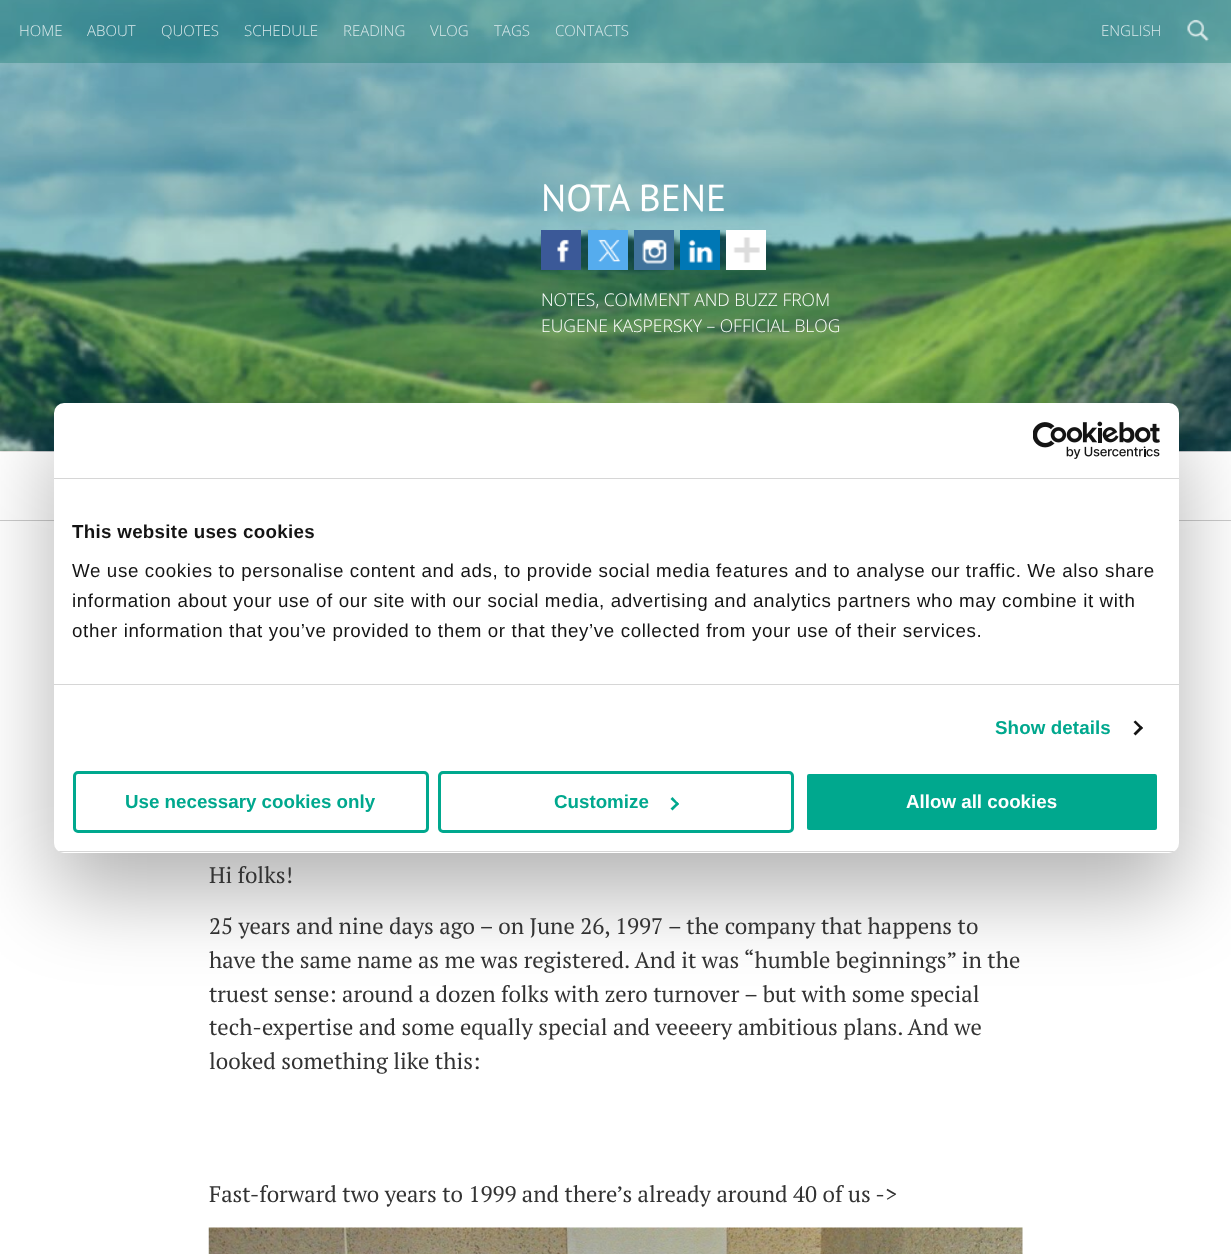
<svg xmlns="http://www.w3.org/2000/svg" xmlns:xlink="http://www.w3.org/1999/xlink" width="1231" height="1254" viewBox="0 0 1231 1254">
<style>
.cls-1{font:300 15px Open Sans;fill:#dae9eb}
.cls-2{font:37.5px PT Sans;fill:#ffffff}
.cls-3{font:300 17.5px Open Sans;fill:#ffffff}
.cls-4{font:22.5px PT Serif;fill:#333333}
.cls-5{font:bold 18.75px Liberation Sans;letter-spacing:0.3px;fill:#141414}
.cls-6{font:18.75px Liberation Sans;letter-spacing:0.62px;fill:#141414}
.cls-7{font:bold 18.75px Liberation Sans;letter-spacing:0.1px;fill:#00a88e}
.cls-8{font:bold 18.75px Liberation Sans;fill:#00a88e}
.cls-9{font:bold 18.75px Liberation Sans;fill:#ffffff}
</style>
<defs>
<clipPath id="clip1"><rect x="54" y="403" width="1125" height="450" rx="10"/></clipPath>
</defs>
<rect width="100%" height="100%" fill="#ffffff"/>
<image xlink:href="image0.png" x="0" y="0" width="1231" height="452"/>
<rect fill="#006d5c" fill-opacity="0.3" x="0" y="0" width="1231" height="63"/>
<image xlink:href="image1.png" x="1187" y="19" width="22" height="23"/>
<rect fill="#3b5998" x="541" y="230" width="40" height="40"/>
<image xlink:href="image2.png" x="557" y="239" width="12" height="24"/>
<rect fill="#55acee" x="588" y="230" width="40" height="40"/>
<image xlink:href="image3.png" x="598" y="239" width="23" height="23"/>
<rect fill="#3f729b" x="634" y="230" width="40" height="40"/>
<image xlink:href="image4.png" x="642" y="239" width="25" height="25"/>
<rect fill="#0077b5" x="680" y="230" width="40" height="40"/>
<image xlink:href="image5.png" x="688" y="239" width="25" height="24"/>
<rect fill="#ffffff" x="726" y="230" width="40" height="40"/>
<image xlink:href="image6.png" x="733" y="237" width="27" height="26"/>
<rect fill="#cccccc" x="0" y="520" width="1231" height="1"/>
<image xlink:href="image7.png" x="208" y="1227" width="815" height="27"/>
<rect fill="#000000" fill-opacity="0.3" filter="blur(42.5px)" x="54" y="443" width="1125" height="450" rx="10"/>
<rect fill="#ffffff" x="54" y="403" width="1125" height="450" rx="10"/>
<rect fill="#d6d6d6" x="54" y="478" width="1125" height="1"/>
<image xlink:href="image8.png" x="1033" y="421" width="127" height="38"/>
<rect fill="#d6d6d6" x="54" y="684" width="1125" height="1"/>
<path fill="#141414" d="M1135.5 720.5L1143 728L1141 729.5L1133.5 722Z"/>
<path fill="#141414" d="M1141 726L1143 728L1135.5 735.5L1133.5 733.5Z"/>
<g clip-path="url(#clip1)">
<rect fill="#d6d6d6" x="54" y="851" width="1125" height="1"/>
</g>
<rect fill="none" stroke="#00a88e" stroke-width="3" x="74.5" y="772.5" width="353" height="59" rx="3.5"/>
<rect fill="none" stroke="#00a88e" stroke-width="3" x="439.5" y="772.5" width="353" height="59" rx="3.5"/>
<path fill="#00a88e" d="M672.5 797L679 804L677.5 805.5L670.5 799Z"/>
<path fill="#00a88e" d="M677.5 802L679 804L672.5 810.5L670.5 808.5Z"/>
<rect fill="#00a88e" stroke="#ffffff" stroke-width="3" x="805.5" y="772.5" width="353" height="59" rx="3.5"/>
<text class="cls-1" x="19" y="36">HOME</text>
<text class="cls-1" x="87" y="36">ABOUT</text>
<text class="cls-1" x="161" y="36">QUOTES</text>
<text class="cls-1" x="244" y="36">SCHEDULE</text>
<text class="cls-1" x="343" y="36">READING</text>
<text class="cls-1" x="430" y="36">VLOG</text>
<text class="cls-1" x="494" y="36">TAGS</text>
<text class="cls-1" x="555" y="36">CONTACTS</text>
<text class="cls-1" x="1101" y="36">ENGLISH</text>
<text class="cls-2" x="541" y="211">NOTA BENE</text>
<text class="cls-3"><tspan x="541" y="306">NOTES, COMMENT AND BUZZ FROM</tspan><tspan x="541" y="332">EUGENE KASPERSKY – OFFICIAL BLOG</tspan></text>
<text class="cls-4" x="209" y="883">Hi folks!</text>
<text class="cls-4"><tspan x="209" y="934">25 years and nine days ago – on June 26, 1997 – the company that happens to</tspan><tspan x="209" y="968">have the same name as me was registered. And it was “humble beginnings” in the</tspan><tspan x="209" y="1002">truest sense: around a dozen folks with zero turnover – but with some special</tspan><tspan x="209" y="1035">tech-expertise and some equally special and veeeery ambitious plans. And we</tspan><tspan x="209" y="1069">looked something like this:</tspan></text>
<text class="cls-4" x="209" y="1202">Fast-forward two years to 1999 and there’s already around 40 of us -&gt;</text>
<text class="cls-5" x="72" y="538">This website uses cookies</text>
<text class="cls-6"><tspan x="72" y="577">We use cookies to personalise content and ads, to provide social media features and to analyse our traffic. We also share</tspan><tspan x="72" y="607">information about your use of our site with our social media, advertising and analytics partners who may combine it with</tspan><tspan x="72" y="637">other information that you’ve provided to them or that they’ve collected from your use of their services.</tspan></text>
<text class="cls-7" x="995" y="734">Show details</text>
<text class="cls-8" x="125" y="808">Use necessary cookies only</text>
<text class="cls-8" x="554" y="808">Customize</text>
<text class="cls-9" x="906" y="808">Allow all cookies</text>
</svg>
